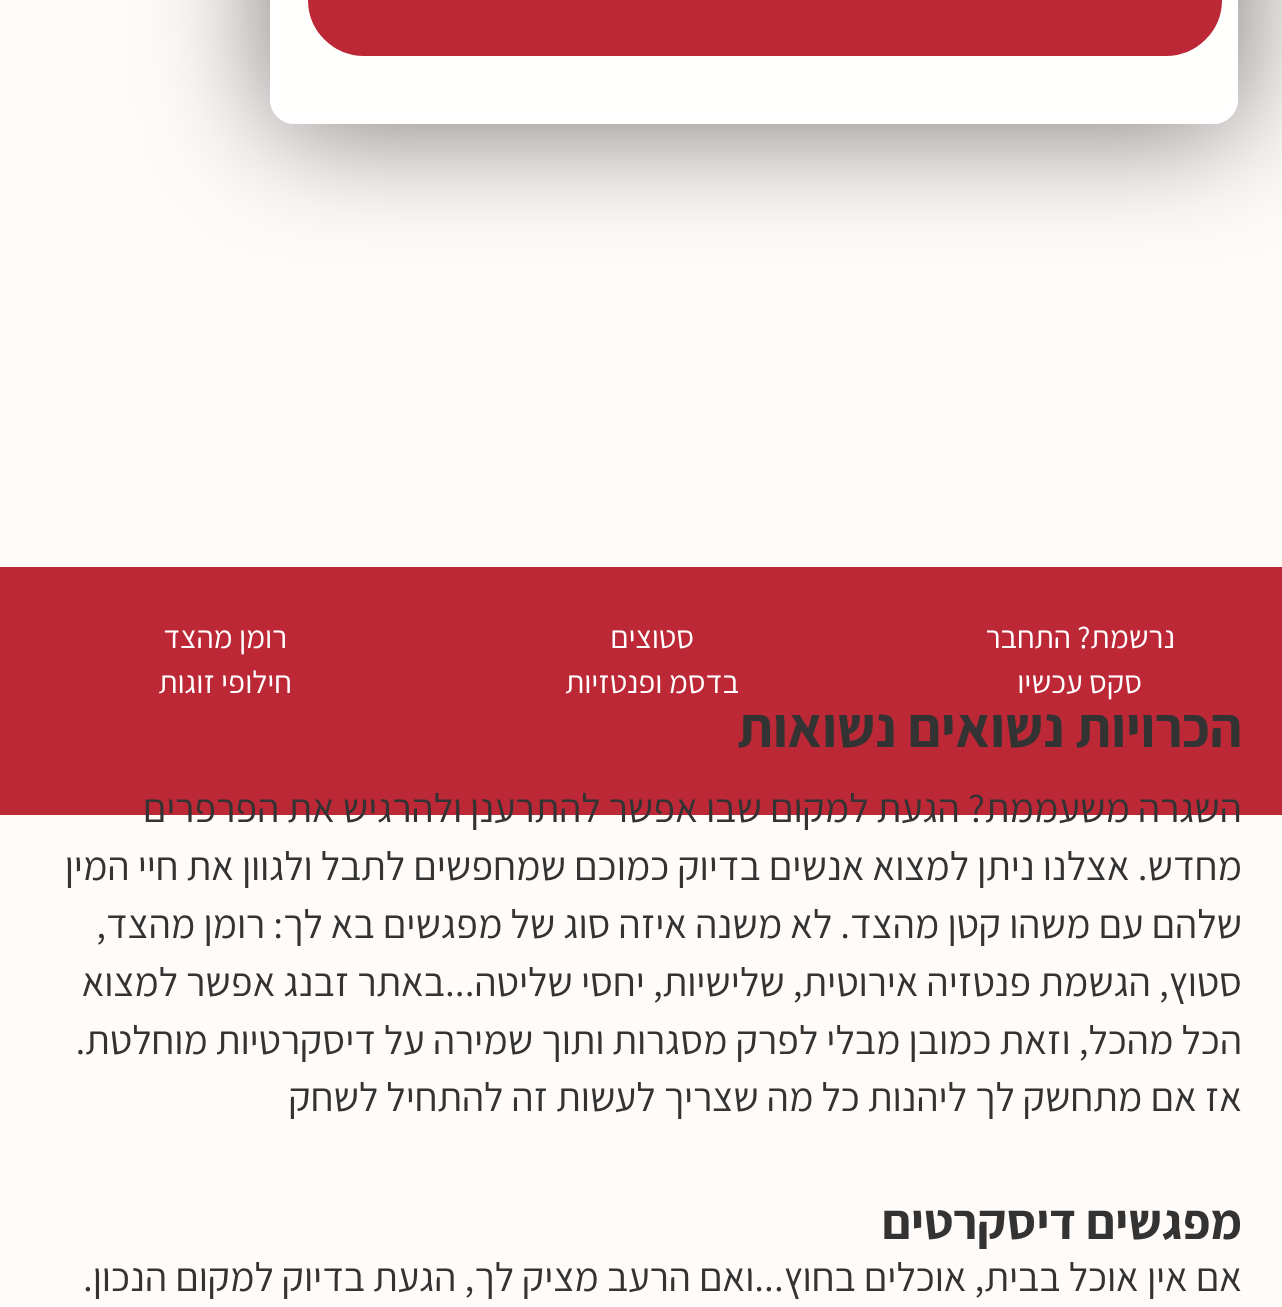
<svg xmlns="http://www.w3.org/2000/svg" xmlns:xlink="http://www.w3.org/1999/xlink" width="1282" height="1307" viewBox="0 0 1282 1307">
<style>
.cls-1{font:31.5px Assistant;direction:rtl;fill:#ffffff}
.cls-2{font:bold 56.25px Assistant;direction:rtl;fill:#333333}
.cls-3{font:40.5px Assistant;direction:rtl;fill:#333333}
.cls-4{font:bold 49.5px Assistant;direction:rtl;fill:#333333}
</style>
<defs>
<clipPath id="clip1"><path d="M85 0H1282V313H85ZM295-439H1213C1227-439 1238-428 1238-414V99C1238 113 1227 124 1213 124H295C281 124 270 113 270 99V-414C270-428 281-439 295-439Z" clip-rule="evenodd"/></clipPath>
</defs>
<rect width="100%" height="100%" fill="#fffbf9"/>
<g clip-path="url(#clip1)">
<rect fill="#000000" fill-opacity="0.55" filter="blur(62px)" x="272" y="-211" width="968" height="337" rx="25"/>
</g>
<rect fill="#ffffff" fill-opacity="0.85" x="270" y="-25" width="968" height="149" rx="25"/>
<rect fill="none" stroke="#ffffff" stroke-opacity="0.66" stroke-width="5" x="272.5" y="-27.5" width="963" height="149" rx="22.5"/>
<rect fill="#bd2837" stroke="#bd2837" stroke-width="2" x="309" y="-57" width="912" height="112" rx="55"/>
<rect fill="#bd2837" x="0" y="567" width="1282" height="248"/>
<text class="cls-1" x="1175" y="648">נרשמת? התחבר</text>
<text class="cls-1" x="1142" y="693">סקס עכשיו</text>
<text class="cls-1" x="694" y="648">סטוצים</text>
<text class="cls-1" x="739" y="693">בדסמ ופנטזיות</text>
<text class="cls-1" x="287" y="648">רומן מהצד</text>
<text class="cls-1" x="292" y="693">חילופי זוגות</text>
<text class="cls-2" x="1242" y="747">הכרויות נשואים נשואות</text>
<text class="cls-3"><tspan x="1242" y="822">השגרה משעממת? הגעת למקום שבו אפשר להתרענן ולהרגיש את הפרפרים</tspan><tspan x="1242" y="880">מחדש. אצלנו ניתן למצוא אנשים בדיוק כמוכם שמחפשים לתבל ולגוון את חיי המין</tspan><tspan x="1242" y="938">שלהם עם משהו קטן מהצד. לא משנה איזה סוג של מפגשים בא לך: רומן מהצד,</tspan><tspan x="1242" y="996">סטוץ, הגשמת פנטזיה אירוטית, שלישיות, יחסי שליטה...באתר זבנג אפשר למצוא</tspan><tspan x="1242" y="1054">הכל מהכל, וזאת כמובן מבלי לפרק מסגרות ותוך שמירה על דיסקרטיות מוחלטת.</tspan><tspan x="1242" y="1111">אז אם מתחשק לך ליהנות כל מה שצריך לעשות זה להתחיל לשחק</tspan></text>
<text class="cls-4" x="1242" y="1239">מפגשים דיסקרטים</text>
<text class="cls-3" x="1242" y="1291">אם אין אוכל בבית, אוכלים בחוץ...ואם הרעב מציק לך, הגעת בדיוק למקום הנכון.</text>
</svg>
